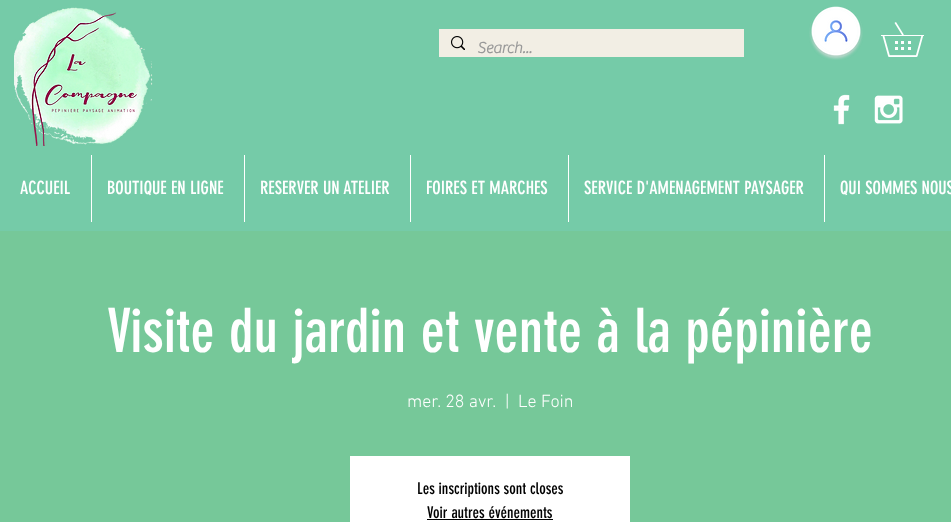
<svg xmlns="http://www.w3.org/2000/svg" xmlns:xlink="http://www.w3.org/1999/xlink" width="951" height="522" viewBox="0 0 951 522">
<style>
.cls-1{font:bold 16px 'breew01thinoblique';fill:#999999}
.cls-2{font:18px 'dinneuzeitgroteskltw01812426';fill:#ffffff}
.cls-3{font:60px 'dinneuzeitgroteskltw01812426';fill:#ffffff}
.cls-4{font:300 18px 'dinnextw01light';fill:#ffffff}
.cls-5{font:16px 'dinneuzeitgroteskltw01812426';fill:#000000}
</style>
<rect width="100%" height="100%" fill="#75cba8"/>
<image xlink:href="image0.png" x="14" y="7" width="139" height="139"/>
<rect fill="#f2eee4" x="439" y="29" width="305" height="28"/>
<image xlink:href="image1.png" x="451" y="36" width="14" height="14"/>
<image xlink:href="image2.png" x="809" y="6" width="54" height="54"/>
<image xlink:href="image3.png" x="881" y="22" width="43" height="35"/>
<image xlink:href="image4.png" x="833" y="94" width="17" height="31"/>
<image xlink:href="image5.png" x="874" y="95" width="29" height="29"/>
<rect fill="#ffffff" x="91" y="155" width="1" height="67"/>
<rect fill="#ffffff" x="244" y="155" width="1" height="67"/>
<rect fill="#ffffff" x="410" y="155" width="1" height="67"/>
<rect fill="#ffffff" x="568" y="155" width="1" height="67"/>
<rect fill="#ffffff" x="824" y="155" width="1" height="67"/>
<rect fill="#76c899" x="0" y="231" width="951" height="291"/>
<rect fill="#ffffff" x="350" y="456" width="280" height="66"/>
<rect fill="#000000" x="427" y="519" width="126" height="1"/>
<text class="cls-1" x="477" y="53">Search...</text>
<text class="cls-2" x="20" y="194">ACCUEIL</text>
<text class="cls-2" x="107" y="194">BOUTIQUE EN LIGNE</text>
<text class="cls-2" x="260" y="194">RESERVER UN ATELIER</text>
<text class="cls-2" x="426" y="194">FOIRES ET MARCHES</text>
<text class="cls-2" x="584" y="194">SERVICE D'AMENAGEMENT PAYSAGER</text>
<text class="cls-2" x="840" y="194">QUI SOMMES NOUS</text>
<text class="cls-3" x="107" y="352">Visite du jardin et vente à la pépinière</text>
<text class="cls-4" x="407" y="407">mer. 28 avr.</text>
<text class="cls-4" x="505" y="407">|</text>
<text class="cls-4" x="518" y="407">Le Foin</text>
<text class="cls-5" x="417" y="494">Les inscriptions sont closes</text>
<text class="cls-5" x="427" y="518">Voir autres événements</text>
</svg>
